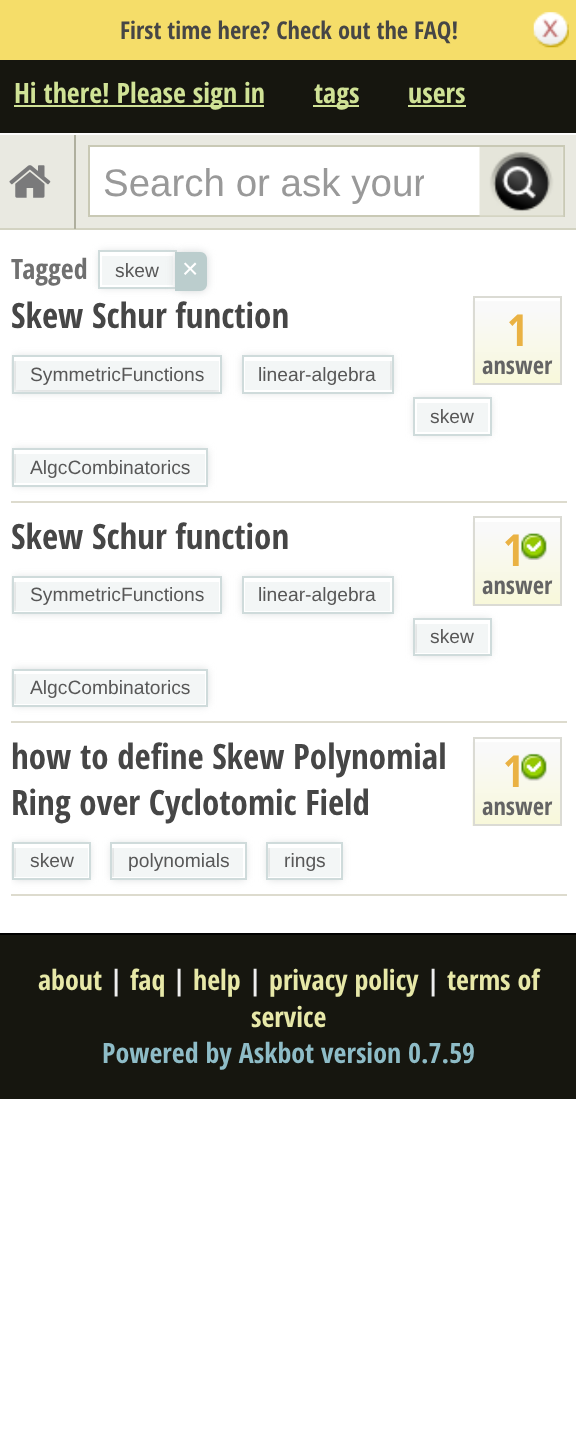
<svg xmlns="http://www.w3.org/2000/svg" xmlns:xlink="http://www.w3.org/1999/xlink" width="576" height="1446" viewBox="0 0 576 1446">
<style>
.cls-1{font:bold 24.5px Open Sans Condensed;fill:#464646}
.cls-2{font:bold 28px Open Sans Condensed;fill:#d0e296}
.cls-3{font:38.5px Liberation Sans;fill:#999999}
.cls-4{font:bold 28px Open Sans Condensed;fill:#707070}
.cls-5{font:19.25px Liberation Sans;fill:#585858}
.cls-6{font:28px Liberation Sans;fill:#ffffff}
.cls-7{font:bold 35px Open Sans Condensed;fill:#464646}
.cls-8{font:bold 44px Open Sans Condensed;fill:#eab243}
.cls-9{font:bold 24.5px Open Sans Condensed;fill:#646464}
.cls-10{font:bold 28px Open Sans Condensed;fill:#e7e8a8}
.cls-11{font:bold 28px Open Sans Condensed;fill:#eeeeee}
.cls-12{font:bold 28px Open Sans Condensed;fill:#8ebcc7}
</style>
<defs>
<clipPath id="clip1"><path d="M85 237H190V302H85ZM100 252H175V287H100Z" clip-rule="evenodd"/></clipPath>
<clipPath id="clip2"><rect x="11" y="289" width="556" height="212"/></clipPath>
<clipPath id="clip3"><path d="M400 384H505V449H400ZM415 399H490V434H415Z" clip-rule="evenodd"/></clipPath>
<clipPath id="clip4"><rect x="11" y="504" width="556" height="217"/></clipPath>
<clipPath id="clip5"><rect x="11" y="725" width="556" height="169"/></clipPath>
<clipPath id="clip6"><rect x="103" y="161" width="321" height="46"/></clipPath>
</defs>
<rect width="100%" height="100%" fill="#ffffff"/>
<rect fill="#f5dd69" x="0" y="0" width="576" height="60"/>
<image xlink:href="image0.png" x="533" y="12" width="36" height="36"/>
<rect fill="#16160f" x="0" y="60" width="576" height="73"/>
<rect fill="#d0e296" x="14" y="105" width="250" height="2"/>
<rect fill="#d0e296" x="313" y="105" width="46" height="2"/>
<rect fill="#d0e296" x="408" y="105" width="58" height="2"/>
<rect fill="#e9e9e1" x="0" y="135" width="576" height="93"/>
<rect fill="#fcfcfc" x="0" y="133" width="576" height="2"/>
<rect fill="#d3d3c2" x="0" y="228" width="576" height="2"/>
<rect fill="#afaf9e" x="74" y="135" width="2" height="94"/>
<image xlink:href="image1.png" x="9" y="165" width="42" height="33"/>
<rect fill="#ffffff" stroke="#c9c9b5" stroke-width="2" x="89" y="146" width="475" height="70"/>
<image xlink:href="image2.png" x="479" y="147" width="85" height="70"/>
<g clip-path="url(#clip1)">
<rect fill="#d3d6d7" filter="blur(4.5px)" x="100" y="252" width="75" height="35"/>
</g>
<rect fill="#f3f6f6" x="102" y="256" width="71" height="29"/>
<rect fill="none" stroke="#cfdbdb" stroke-width="2" x="99" y="251" width="77" height="37"/>
<rect fill="#d3d6d7" filter="blur(4.5px)" x="175" y="252" width="32" height="39" rx="7"/>
<path fill="#bbcdcd" d="M175 252H200C204 252 207 255 207 259V284C207 288 204 291 200 291H175Z"/>
<rect fill="#dddbce" x="11" y="501" width="556" height="2"/>
<image xlink:href="image3.png" x="472" y="301" width="88" height="84"/>
<rect fill="none" stroke="#dbdbd4" stroke-width="2" x="474" y="297" width="87" height="87"/>
<g clip-path="url(#clip2)">
<rect fill="#d3d6d7" filter="blur(4.5px)" x="14" y="357" width="207" height="35"/>
</g>
<rect fill="#f3f6f6" x="16" y="361" width="203" height="29"/>
<rect fill="#ffffff" x="14" y="357" width="207" height="4"/>
<rect fill="#ffffff" x="219" y="357" width="1" height="35"/>
<rect fill="none" stroke="#cfdbdb" stroke-width="2" x="13" y="356" width="208" height="37"/>
<rect fill="#d3d6d7" filter="blur(4.5px)" x="243" y="357" width="149" height="35"/>
<rect fill="#f3f6f6" x="245" y="361" width="145" height="29"/>
<rect fill="#ffffff" x="243" y="357" width="149" height="4"/>
<rect fill="#ffffff" x="243" y="390" width="149" height="2"/>
<rect fill="#ffffff" x="244" y="357" width="1" height="35"/>
<rect fill="none" stroke="#cfdbdb" stroke-width="2" x="243" y="356" width="150" height="37"/>
<g clip-path="url(#clip3)">
<rect fill="#d3d6d7" filter="blur(4.5px)" x="415" y="399" width="75" height="35"/>
</g>
<rect fill="#f3f6f6" x="417" y="403" width="71" height="29"/>
<rect fill="none" stroke="#cfdbdb" stroke-width="2" x="414" y="398" width="77" height="37"/>
<g clip-path="url(#clip2)">
<rect fill="#d3d6d7" filter="blur(4.5px)" x="14" y="450" width="193" height="35"/>
</g>
<rect fill="#f3f6f6" x="16" y="454" width="189" height="29"/>
<rect fill="#ffffff" x="14" y="450" width="193" height="4"/>
<rect fill="#ffffff" x="205" y="450" width="1" height="35"/>
<rect fill="#ffffff" x="14" y="483" width="193" height="2"/>
<rect fill="none" stroke="#cfdbdb" stroke-width="2" x="13" y="449" width="194" height="37"/>
<rect fill="#dddbce" x="11" y="721" width="556" height="2"/>
<image xlink:href="image4.png" x="472" y="522" width="88" height="84"/>
<rect fill="none" stroke="#dbdbd4" stroke-width="2" x="474" y="517" width="87" height="88"/>
<image xlink:href="image5.png" x="521" y="533" width="26" height="27"/>
<g clip-path="url(#clip4)">
<rect fill="#d3d6d7" filter="blur(4.5px)" x="14" y="578" width="207" height="35"/>
</g>
<rect fill="#f3f6f6" x="16" y="582" width="203" height="29"/>
<rect fill="#ffffff" x="14" y="578" width="207" height="4"/>
<rect fill="#ffffff" x="219" y="578" width="1" height="35"/>
<rect fill="#ffffff" x="14" y="611" width="207" height="1"/>
<rect fill="none" stroke="#cfdbdb" stroke-width="2" x="13" y="577" width="208" height="36"/>
<rect fill="#d3d6d7" filter="blur(4.5px)" x="243" y="578" width="149" height="35"/>
<rect fill="#f3f6f6" x="245" y="582" width="145" height="29"/>
<rect fill="#ffffff" x="243" y="578" width="149" height="4"/>
<rect fill="#ffffff" x="390" y="578" width="2" height="35"/>
<rect fill="#ffffff" x="243" y="611" width="149" height="1"/>
<rect fill="#ffffff" x="244" y="578" width="1" height="35"/>
<rect fill="none" stroke="#cfdbdb" stroke-width="2" x="243" y="577" width="150" height="36"/>
<rect fill="#d3d6d7" filter="blur(4.5px)" x="415" y="620" width="75" height="35"/>
<rect fill="#f3f6f6" x="417" y="624" width="71" height="29"/>
<rect fill="#ffffff" x="415" y="620" width="75" height="4"/>
<rect fill="#ffffff" x="488" y="620" width="2" height="35"/>
<rect fill="#ffffff" x="415" y="653" width="75" height="1"/>
<rect fill="none" stroke="#cfdbdb" stroke-width="2" x="414" y="619" width="77" height="36"/>
<g clip-path="url(#clip4)">
<rect fill="#d3d6d7" filter="blur(4.5px)" x="14" y="670" width="193" height="35"/>
</g>
<rect fill="#f3f6f6" x="16" y="674" width="189" height="30"/>
<rect fill="#ffffff" x="14" y="671" width="193" height="3"/>
<rect fill="#ffffff" x="205" y="670" width="1" height="35"/>
<rect fill="#ffffff" x="14" y="704" width="193" height="1"/>
<rect fill="none" stroke="#cfdbdb" stroke-width="2" x="13" y="670" width="194" height="36"/>
<rect fill="#dddbce" x="11" y="894" width="556" height="2"/>
<image xlink:href="image6.png" x="472" y="742" width="88" height="84"/>
<rect fill="none" stroke="#dbdbd4" stroke-width="2" x="474" y="738" width="87" height="87"/>
<image xlink:href="image7.png" x="521" y="753" width="26" height="28"/>
<g clip-path="url(#clip5)">
<rect fill="#d3d6d7" filter="blur(4.5px)" x="14" y="844" width="75" height="35"/>
</g>
<rect fill="#f3f6f6" x="16" y="848" width="72" height="29"/>
<rect fill="#ffffff" x="14" y="844" width="75" height="4"/>
<rect fill="#ffffff" x="88" y="844" width="1" height="35"/>
<rect fill="#ffffff" x="14" y="877" width="75" height="1"/>
<rect fill="none" stroke="#cfdbdb" stroke-width="2" x="13" y="843" width="77" height="36"/>
<rect fill="#d3d6d7" filter="blur(4.5px)" x="112" y="844" width="133" height="35"/>
<rect fill="#f3f6f6" x="114" y="848" width="129" height="29"/>
<rect fill="#ffffff" x="112" y="844" width="133" height="4"/>
<rect fill="#ffffff" x="243" y="844" width="2" height="35"/>
<rect fill="#ffffff" x="112" y="877" width="133" height="1"/>
<rect fill="none" stroke="#cfdbdb" stroke-width="2" x="111" y="843" width="135" height="36"/>
<rect fill="#d3d6d7" filter="blur(4.5px)" x="268" y="844" width="73" height="35"/>
<rect fill="#f3f6f6" x="270" y="848" width="70" height="29"/>
<rect fill="#ffffff" x="268" y="844" width="73" height="4"/>
<rect fill="#ffffff" x="340" y="844" width="1" height="35"/>
<rect fill="#ffffff" x="268" y="877" width="73" height="1"/>
<rect fill="none" stroke="#cfdbdb" stroke-width="2" x="267" y="843" width="75" height="36"/>
<rect fill="#16160f" x="0" y="935" width="576" height="164"/>
<rect fill="#000000" x="0" y="933" width="576" height="2"/>
<text class="cls-1" x="120" y="39">First time here? Check out the FAQ!</text>
<text class="cls-2" x="14" y="103">Hi there! Please sign in</text>
<text class="cls-2" x="314" y="103">tags</text>
<text class="cls-2" x="408" y="103">users</text>
<g clip-path="url(#clip6)">
<text class="cls-3" x="103" y="196">Search or ask your</text>
</g>
<text class="cls-4" x="11" y="279">Tagged</text>
<text class="cls-5" x="115" y="277">skew</text>
<text class="cls-6" x="182" y="278">×</text>
<text class="cls-7" x="11" y="328">Skew Schur function</text>
<text class="cls-8" x="507" y="346">1</text>
<text class="cls-9" x="482" y="374">answer</text>
<text class="cls-5" x="30" y="381">SymmetricFunctions</text>
<text class="cls-5" x="258" y="381">linear-algebra</text>
<text class="cls-5" x="430" y="423">skew</text>
<text class="cls-5" x="30" y="474">AlgcCombinatorics</text>
<text class="cls-7" x="11" y="549">Skew Schur function</text>
<text class="cls-8" x="503" y="566">1</text>
<text class="cls-9" x="482" y="594">answer</text>
<text class="cls-5" x="30" y="601">SymmetricFunctions</text>
<text class="cls-5" x="258" y="601">linear-algebra</text>
<text class="cls-5" x="430" y="643">skew</text>
<text class="cls-5" x="30" y="694">AlgcCombinatorics</text>
<text class="cls-7"><tspan x="11" y="769">how to define Skew Polynomial</tspan><tspan x="11" y="815">Ring over Cyclotomic Field</tspan></text>
<text class="cls-8" x="503" y="787">1</text>
<text class="cls-9" x="482" y="815">answer</text>
<text class="cls-5" x="30" y="867">skew</text>
<text class="cls-5" x="128" y="867">polynomials</text>
<text class="cls-5" x="284" y="867">rings</text>
<text class="cls-10" x="38" y="990">about</text>
<text class="cls-11" x="109" y="990">|</text>
<text class="cls-10" x="130" y="990">faq</text>
<text class="cls-11" x="172" y="990">|</text>
<text class="cls-10" x="193" y="990">help</text>
<text class="cls-11" x="248" y="990">|</text>
<text class="cls-10" x="269" y="990">privacy policy</text>
<text class="cls-11" x="426" y="990">|</text>
<text class="cls-10" x="447" y="990">terms of</text>
<text class="cls-10" x="251" y="1027">service</text>
<text class="cls-12" x="102" y="1063">Powered by Askbot version 0.7.59</text>
</svg>
